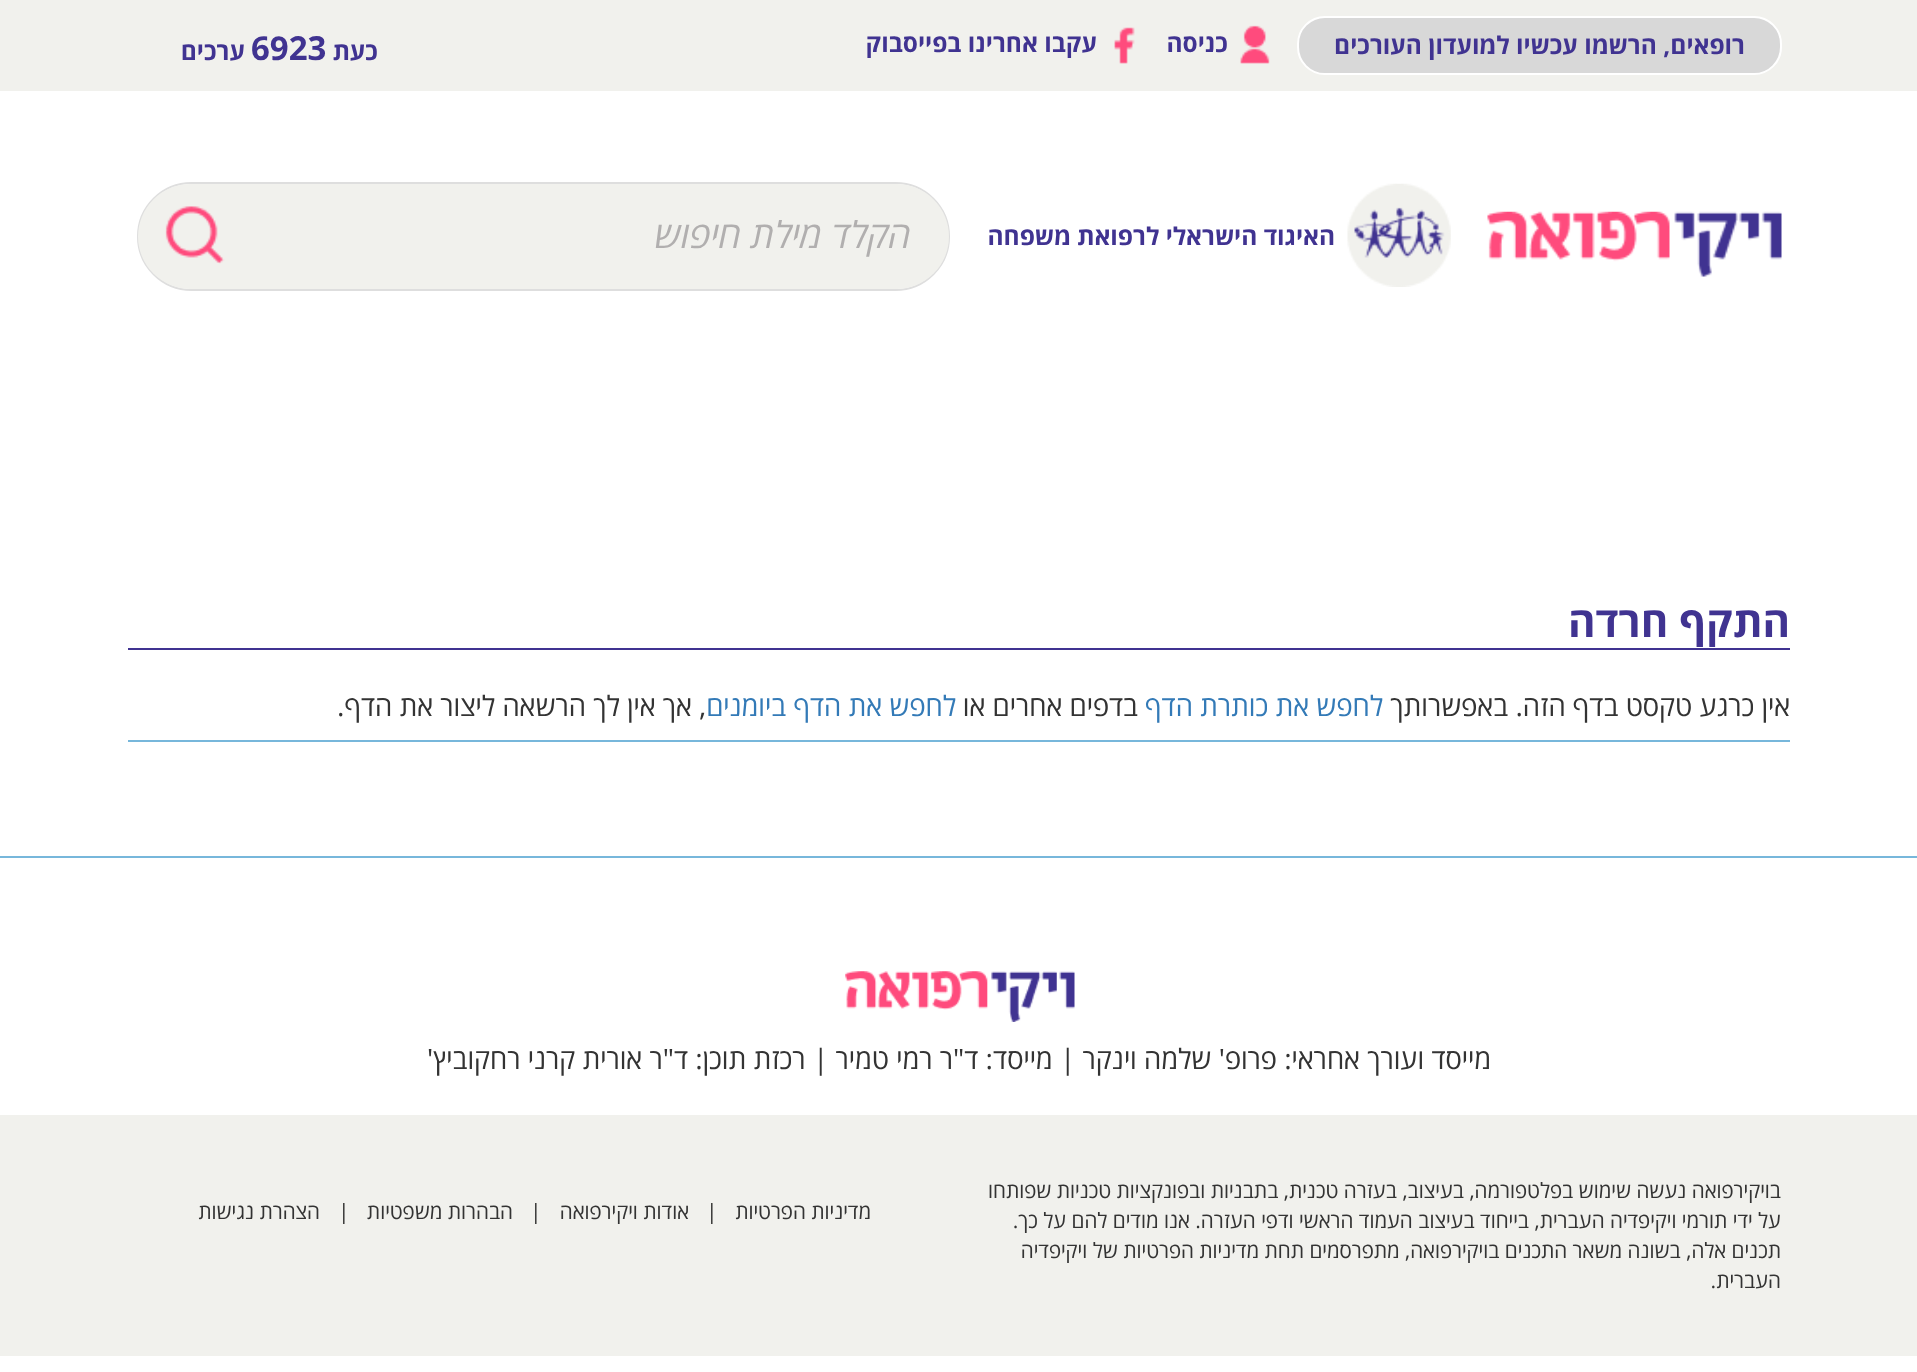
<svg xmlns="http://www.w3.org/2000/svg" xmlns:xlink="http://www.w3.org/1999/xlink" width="1917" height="1372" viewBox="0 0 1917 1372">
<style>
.cls-1{font:bold 24.5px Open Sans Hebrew;direction:rtl;fill:#403391}
.cls-2{font:bold 33px Open Sans Hebrew;fill:#403391}
.cls-3{font:italic 36.75px Open Sans Hebrew;direction:rtl;fill:#b1afaf}
.cls-4{font:bold 42px Open Sans Hebrew;direction:rtl;fill:#403391}
.cls-5{font:28px Open Sans Hebrew;direction:rtl;fill:#333333}
.cls-6{font:28px Open Sans Hebrew;direction:rtl;fill:#337ab7}
.cls-7{font:21px Open Sans Hebrew;direction:rtl;fill:#333333}
.cls-8{font:21px Open Sans Hebrew;fill:#333333}
</style>
<rect width="100%" height="100%" fill="#ffffff"/>
<rect fill="#f1f1ed" x="0" y="0" width="1917" height="91"/>
<rect fill="#d8d8d8" stroke="#ffffff" stroke-width="2" x="1298" y="17" width="483" height="57" rx="27"/>
<image xlink:href="image0.png" x="1240" y="25" width="30" height="39"/>
<image xlink:href="image1.png" x="1114" y="27" width="21" height="37"/>
<image xlink:href="image2.png" x="1487" y="211" width="295" height="66"/>
<image xlink:href="image3.png" x="1347" y="183" width="104" height="104"/>
<rect fill="none" stroke="#dedede" stroke-width="2" x="138" y="183" width="811" height="107" rx="53.5"/>
<rect fill="#f1f1ed" x="138" y="184" width="811" height="105" rx="52.5"/>
<image xlink:href="image4.png" x="165" y="206" width="60" height="58"/>
<rect fill="#403391" x="128" y="648" width="1662" height="2"/>
<rect fill="#77b7db" x="128" y="740" width="1662" height="2"/>
<rect fill="#77b7db" x="0" y="856" width="1917" height="2"/>
<image xlink:href="image5.png" x="845" y="971" width="230" height="51"/>
<rect fill="#f1f1ed" x="0" y="1115" width="1917" height="241"/>
<text class="cls-1" x="1745" y="54">רופאים, הרשמו עכשיו למועדון העורכים</text>
<text class="cls-1" x="1228" y="52">כניסה</text>
<text class="cls-1" x="1097" y="52">עקבו אחרינו בפייסבוק</text>
<text class="cls-1" x="378" y="60">כעת</text>
<text class="cls-2" x="251" y="60">6923</text>
<text class="cls-1" x="245" y="60">ערכים</text>
<text class="cls-1" x="1335" y="245">האיגוד הישראלי לרפואת משפחה</text>
<text class="cls-3" x="911" y="248">הקלד מילת חיפוש</text>
<text class="cls-4" x="1790" y="637">התקף חרדה</text>
<text class="cls-5" x="1790" y="716">אין כרגע טקסט בדף הזה. באפשרותך</text>
<text class="cls-6" x="1383" y="716">לחפש את כותרת הדף</text>
<text class="cls-5" x="1138" y="716">בדפים אחרים או</text>
<text class="cls-6" x="956" y="716">לחפש את הדף ביומנים</text>
<text class="cls-5" x="706" y="716">, אך אין לך הרשאה ליצור את הדף.</text>
<text class="cls-5" x="1491" y="1069">מייסד ועורך אחראי: פרופ' שלמה וינקר | מייסד: ד"ר רמי טמיר | רכזת תוכן: ד"ר אורית קרני רחקוביץ'</text>
<text class="cls-7"><tspan x="1781" y="1198">בויקירפואה נעשה שימוש בפלטפורמה, בעיצוב, בעזרה טכנית, בתבניות ובפונקציות טכניות שפותחו</tspan><tspan x="1781" y="1228">על ידי תורמי ויקיפדיה העברית, בייחוד בעיצוב העמוד הראשי ודפי העזרה. אנו מודים להם על כך.</tspan><tspan x="1781" y="1258">תכנים אלה, בשונה משאר התכנים בויקירפואה, מתפרסמים תחת מדיניות הפרטיות של ויקיפדיה</tspan><tspan x="1781" y="1288">העברית.</tspan></text>
<text class="cls-7" x="871" y="1219">מדיניות הפרטיות</text>
<text class="cls-8" x="706" y="1219">|</text>
<text class="cls-7" x="689" y="1219">אודות ויקירפואה</text>
<text class="cls-8" x="530" y="1219">|</text>
<text class="cls-7" x="513" y="1219">הבהרות משפטיות</text>
<text class="cls-8" x="338" y="1219">|</text>
<text class="cls-7" x="320" y="1219">הצהרת נגישות</text>
</svg>
